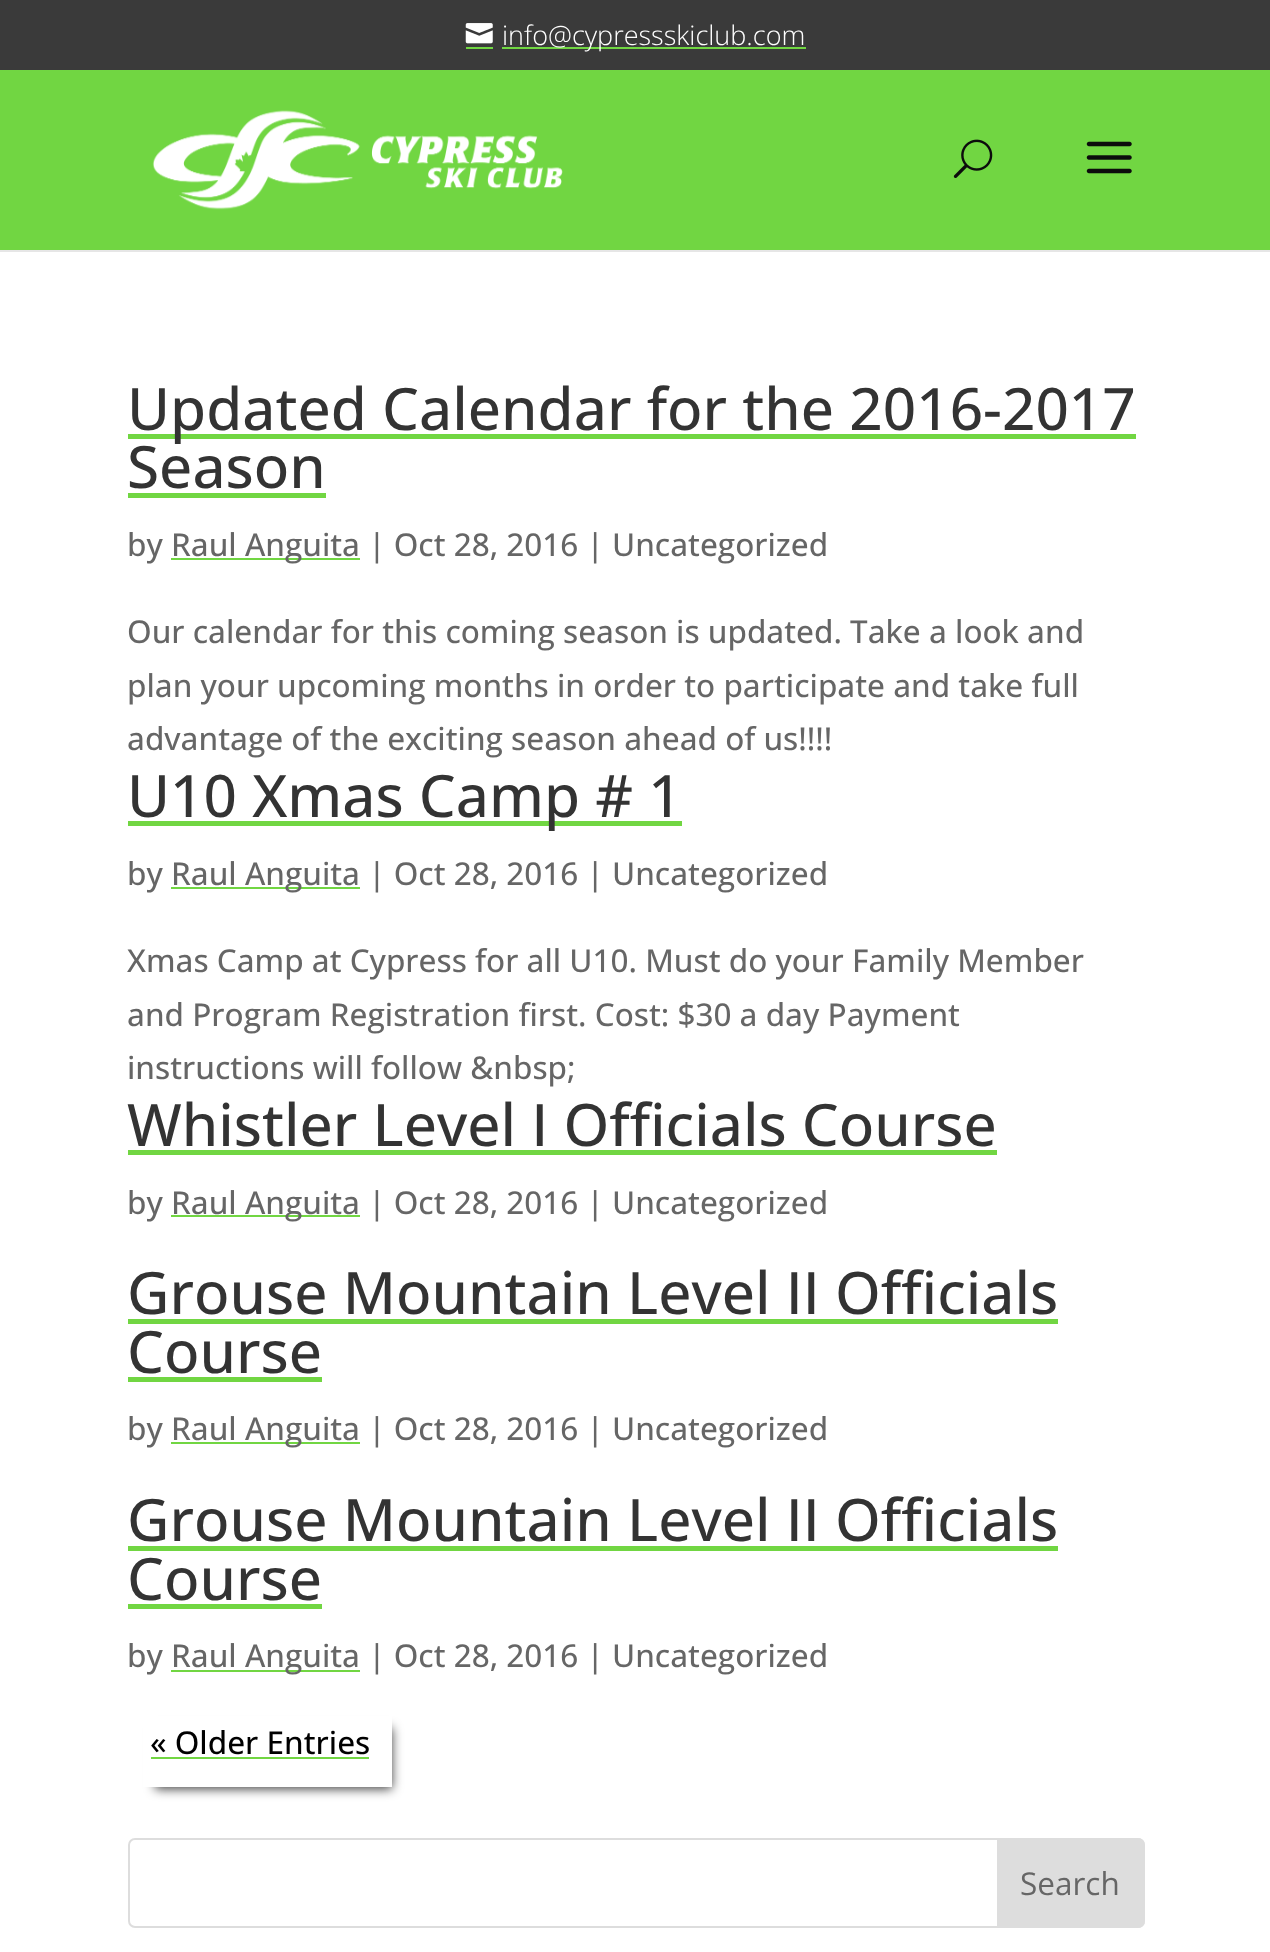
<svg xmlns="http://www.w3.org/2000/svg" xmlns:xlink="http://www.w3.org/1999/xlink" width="1270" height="1952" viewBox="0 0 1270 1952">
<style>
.cls-1{font:300 27px Open Sans;fill:#ffffff}
.cls-2{font:500 58.5px Open Sans;fill:#333333}
.cls-3{font:500 31.5px Open Sans;fill:#666666}
.cls-4{font:500 31.5px Open Sans;fill:#000000}
.cls-5{font:31.5px Open Sans;fill:#666666}
</style>
<rect width="100%" height="100%" fill="#ffffff"/>
<rect fill="#3a3a3a" x="0" y="0" width="1270" height="70"/>
<image xlink:href="image0.png" x="465" y="23" width="28" height="21"/>
<rect fill="#71d642" x="466" y="47" width="27" height="2"/>
<rect fill="#71d642" x="502" y="47" width="304" height="2"/>
<rect fill="#e6e6e6" x="0" y="250" width="1270" height="2"/>
<rect fill="#71d642" x="0" y="70" width="1270" height="180"/>
<image xlink:href="image1.png" x="152" y="110" width="411" height="100"/>
<image xlink:href="image2.png" x="953" y="139" width="40" height="39"/>
<image xlink:href="image3.png" x="1086" y="141" width="46" height="33"/>
<rect fill="#71d642" x="128" y="434" width="1008" height="5"/>
<rect fill="#71d642" x="128" y="493" width="198" height="5"/>
<rect fill="#71d642" x="171" y="558" width="189" height="2"/>
<rect fill="#71d642" x="128" y="821" width="554" height="5"/>
<rect fill="#71d642" x="171" y="887" width="189" height="2"/>
<rect fill="#71d642" x="128" y="1150" width="869" height="5"/>
<rect fill="#71d642" x="171" y="1215" width="189" height="2"/>
<rect fill="#71d642" x="128" y="1319" width="930" height="5"/>
<rect fill="#71d642" x="128" y="1377" width="194" height="5"/>
<rect fill="#71d642" x="171" y="1442" width="189" height="2"/>
<rect fill="#71d642" x="128" y="1546" width="930" height="5"/>
<rect fill="#71d642" x="128" y="1604" width="194" height="5"/>
<rect fill="#71d642" x="171" y="1670" width="189" height="2"/>
<rect fill="#000000" fill-opacity="0.75" filter="blur(5.5px)" x="155" y="1728" width="237" height="61"/>
<rect fill="#ffffff" x="143" y="1716" width="249" height="71"/>
<rect fill="#71d642" x="151" y="1757" width="218" height="2"/>
<rect fill="none" stroke="#dddddd" stroke-width="2" x="129" y="1839" width="1015" height="88" rx="6"/>
<path fill="#dddddd" stroke="#dddddd" stroke-width="2" d="M998 1839H1138C1141.5 1839 1144 1841.5 1144 1845V1921C1144 1924.5 1141.5 1927 1138 1927H998Z"/>
<text class="cls-1" x="502" y="45">info@cypressskiclub.com</text>
<text class="cls-2"><tspan x="127" y="430">Updated Calendar for the 2016-2017</tspan><tspan x="127" y="488">Season</tspan></text>
<text class="cls-3" x="127" y="556">by</text>
<text class="cls-3" x="171" y="556">Raul Anguita | Oct 28, 2016 | Uncategorized</text>
<text class="cls-3"><tspan x="127" y="643">Our calendar for this coming season is updated. Take a look and</tspan><tspan x="127" y="697">plan your upcoming months in order to participate and take full</tspan><tspan x="127" y="750">advantage of the exciting season ahead of us!!!!</tspan></text>
<text class="cls-2" x="127" y="817">U10 Xmas Camp # 1</text>
<text class="cls-3" x="127" y="885">by</text>
<text class="cls-3" x="171" y="885">Raul Anguita | Oct 28, 2016 | Uncategorized</text>
<text class="cls-3"><tspan x="127" y="972">Xmas Camp at Cypress for all U10. Must do your Family Member</tspan><tspan x="127" y="1026">and Program Registration first. Cost: $30 a day Payment</tspan><tspan x="127" y="1079">instructions will follow &amp;nbsp;</tspan></text>
<text class="cls-2" x="127" y="1146">Whistler Level I Officials Course</text>
<text class="cls-3" x="127" y="1214">by</text>
<text class="cls-3" x="171" y="1214">Raul Anguita | Oct 28, 2016 | Uncategorized</text>
<text class="cls-2"><tspan x="127" y="1314">Grouse Mountain Level II Officials</tspan><tspan x="127" y="1373">Course</tspan></text>
<text class="cls-3" x="127" y="1440">by</text>
<text class="cls-3" x="171" y="1440">Raul Anguita | Oct 28, 2016 | Uncategorized</text>
<text class="cls-2"><tspan x="127" y="1541">Grouse Mountain Level II Officials</tspan><tspan x="127" y="1600">Course</tspan></text>
<text class="cls-3" x="127" y="1667">by</text>
<text class="cls-3" x="171" y="1667">Raul Anguita | Oct 28, 2016 | Uncategorized</text>
<text class="cls-4" x="150" y="1754">« Older Entries</text>
<text class="cls-5" x="1020" y="1895">Search</text>
</svg>
